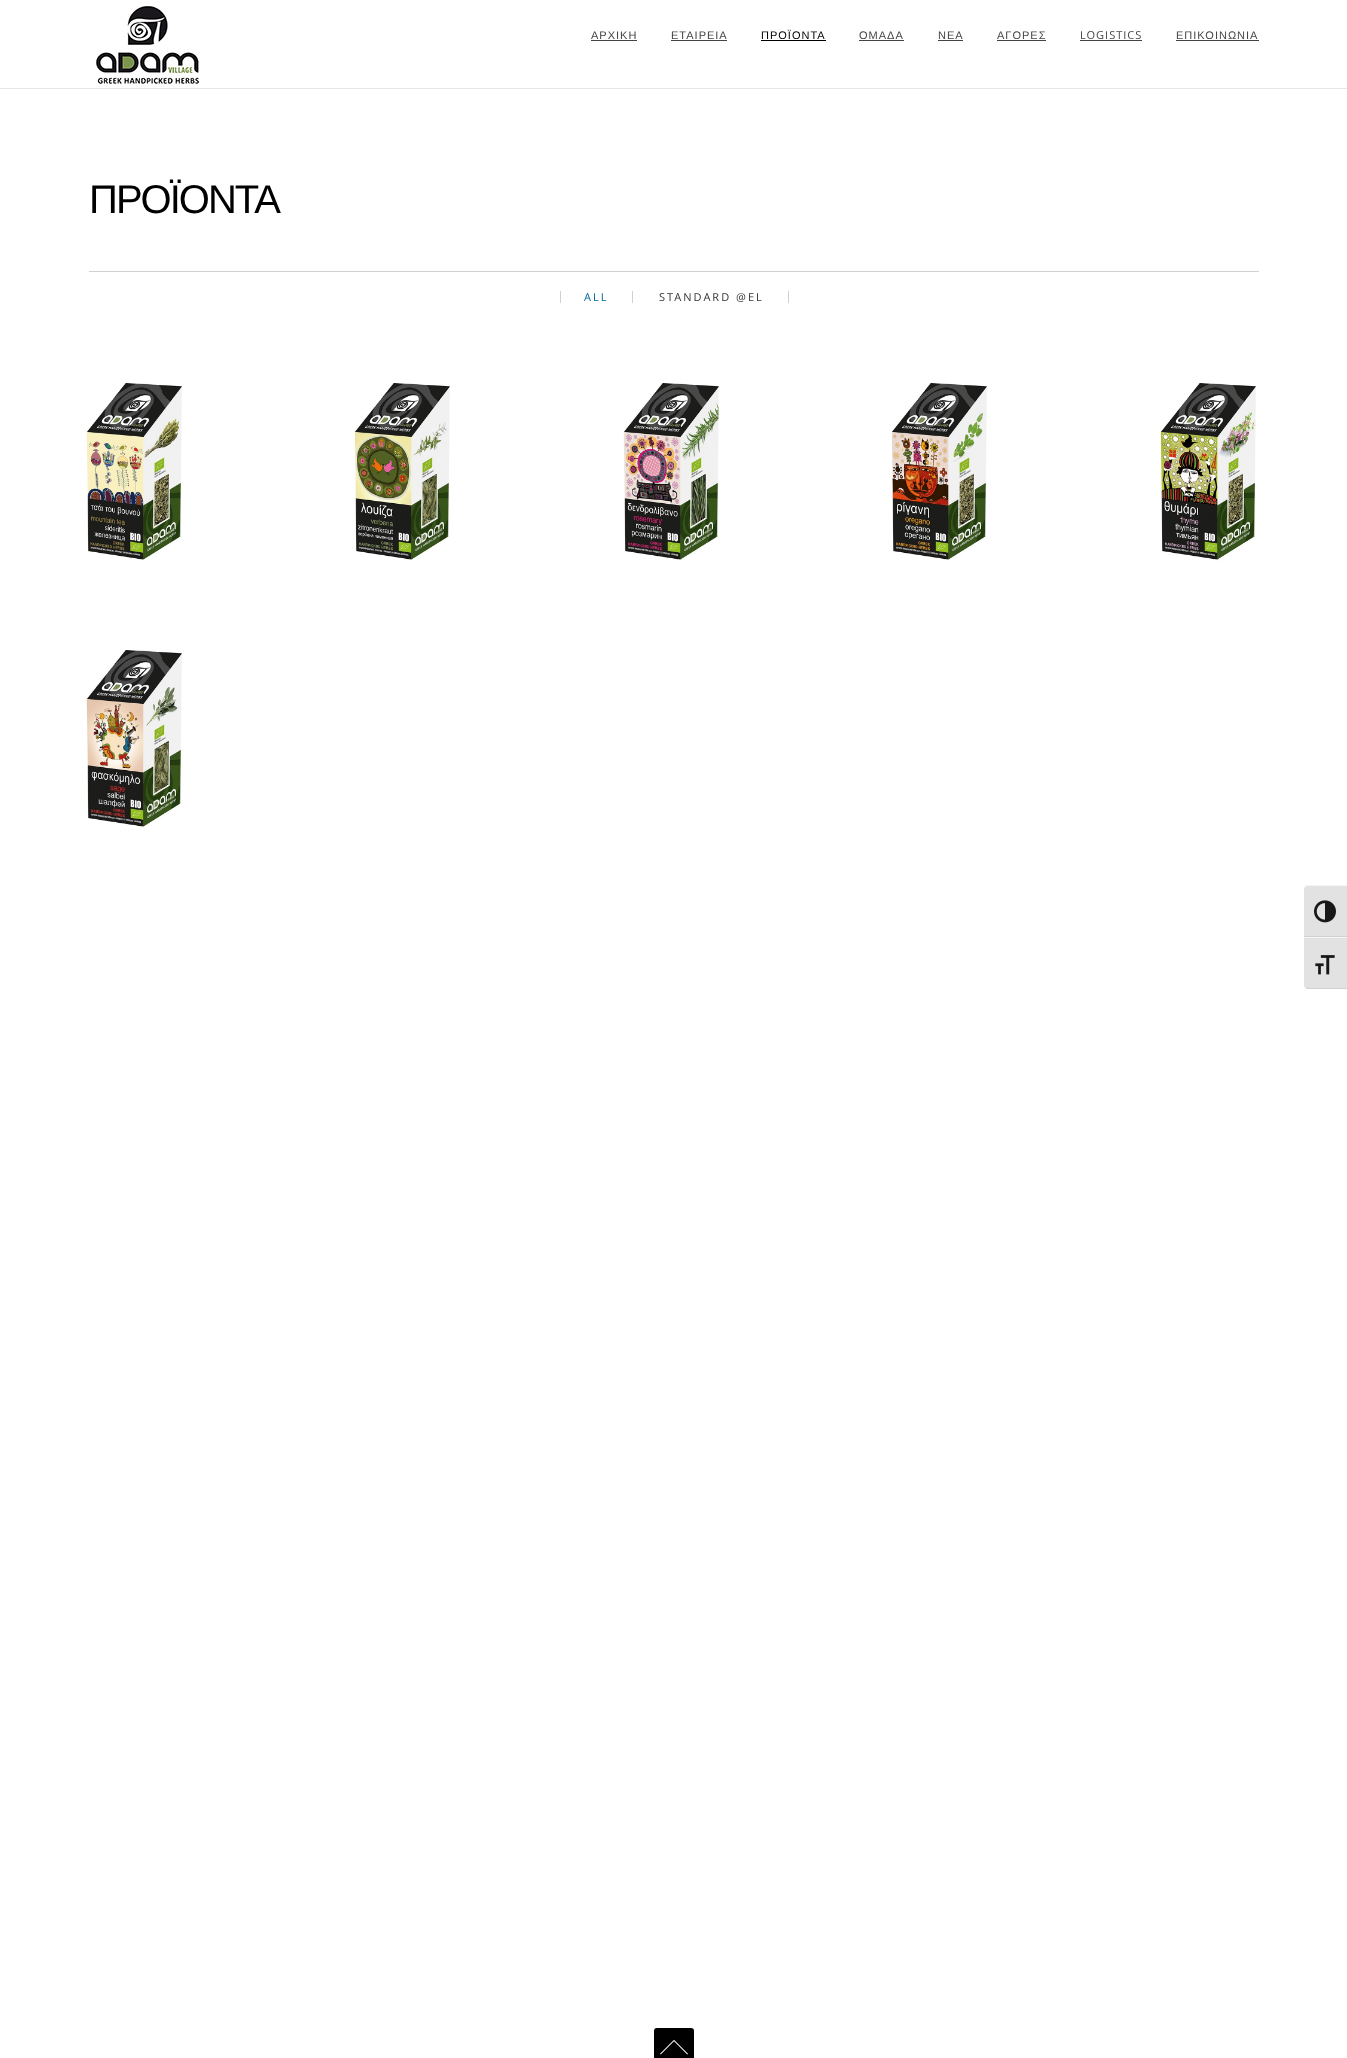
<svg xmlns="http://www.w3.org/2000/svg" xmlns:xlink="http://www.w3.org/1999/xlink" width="1347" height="2058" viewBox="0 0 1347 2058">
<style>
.cls-1{font:11px Liberation Sans;letter-spacing:1px;fill:#444444}
.cls-2{font:11px Liberation Sans;letter-spacing:1px;fill:#000000}
.cls-3{font:11px Open Sans;letter-spacing:1px;fill:#444444}
.cls-4{font:40px Liberation Sans;letter-spacing:-2px;fill:#000000}
.cls-5{font:11px Open Sans;letter-spacing:2px;fill:#006699}
.cls-6{font:11px Open Sans;letter-spacing:2px;fill:#333333}
</style>
<rect width="100%" height="100%" fill="#ffffff"/>
<rect fill="#e6e6e6" x="0" y="88" width="1347" height="1"/>
<image xlink:href="image0.png" x="96" y="6" width="104" height="81"/>
<rect fill="#444444" x="591" y="40" width="46" height="1"/>
<rect fill="#444444" x="671" y="40" width="56" height="1"/>
<rect fill="#000000" x="761" y="40" width="65" height="1"/>
<rect fill="#444444" x="859" y="40" width="45" height="1"/>
<rect fill="#444444" x="938" y="40" width="25" height="1"/>
<rect fill="#444444" x="997" y="40" width="49" height="1"/>
<rect fill="#444444" x="1080" y="40" width="62" height="1"/>
<rect fill="#444444" x="1176" y="40" width="83" height="1"/>
<rect fill="#d0d0d0" x="89" y="271" width="1170" height="1"/>
<rect fill="#d0d0d0" x="560" y="291" width="1" height="12"/>
<rect fill="#d0d0d0" x="632" y="291" width="1" height="12"/>
<rect fill="#d0d0d0" x="788" y="291" width="1" height="12"/>
<image xlink:href="image1.png" x="86" y="383" width="97" height="177"/>
<image xlink:href="image2.png" x="354" y="383" width="96" height="177"/>
<image xlink:href="image3.png" x="623" y="383" width="97" height="177"/>
<image xlink:href="image4.png" x="891" y="383" width="96" height="177"/>
<image xlink:href="image5.png" x="1160" y="383" width="97" height="179"/>
<image xlink:href="image6.png" x="86" y="650" width="97" height="179"/>
<path fill="#e2e2e2" d="M1308 885H1347V937H1304V889C1304 887 1306 885 1308 885Z"/>
<path fill="#f5f5f5" d="M1308 886H1347V885H1308C1306 885 1304 887 1304 889C1304 887 1306 886 1308 886Z"/>
<rect fill="#d2d2d2" x="1304" y="936" width="43" height="1"/>
<image xlink:href="image7.png" x="1314" y="900" width="22" height="23"/>
<path fill="#e2e2e2" d="M1304 937H1347V989H1308C1306 989 1304 987 1304 985Z"/>
<rect fill="#f5f5f5" x="1304" y="937" width="43" height="1"/>
<path fill="#d2d2d2" d="M1347 989V988H1308C1306 988 1304 987 1304 985C1304 987 1306 989 1308 989Z"/>
<image xlink:href="image8.png" x="1315" y="955" width="20" height="20"/>
<rect fill="#000000" x="654" y="2028" width="40" height="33" rx="3"/>
<image xlink:href="image9.png" x="660" y="2040" width="28" height="15"/>
<text class="cls-1" x="591" y="39">ΑΡΧΙΚΗ</text>
<text class="cls-1" x="671" y="39">ΕΤΑΙΡΕΙΑ</text>
<text class="cls-2" x="761" y="39">ΠΡΟΪΟΝΤΑ</text>
<text class="cls-1" x="859" y="39">ΟΜΑΔΑ</text>
<text class="cls-1" x="938" y="39">ΝΕΑ</text>
<text class="cls-1" x="997" y="39">ΑΓΟΡΕΣ</text>
<text class="cls-3" x="1080" y="39">LOGISTICS</text>
<text class="cls-1" x="1176" y="39">ΕΠΙΚΟΙΝΩΝΙΑ</text>
<text class="cls-4" x="89" y="213">ΠΡΟΪΟΝΤΑ</text>
<text class="cls-5" x="584" y="301">ALL</text>
<text class="cls-6" x="659" y="301">STANDARD @EL</text>
</svg>
